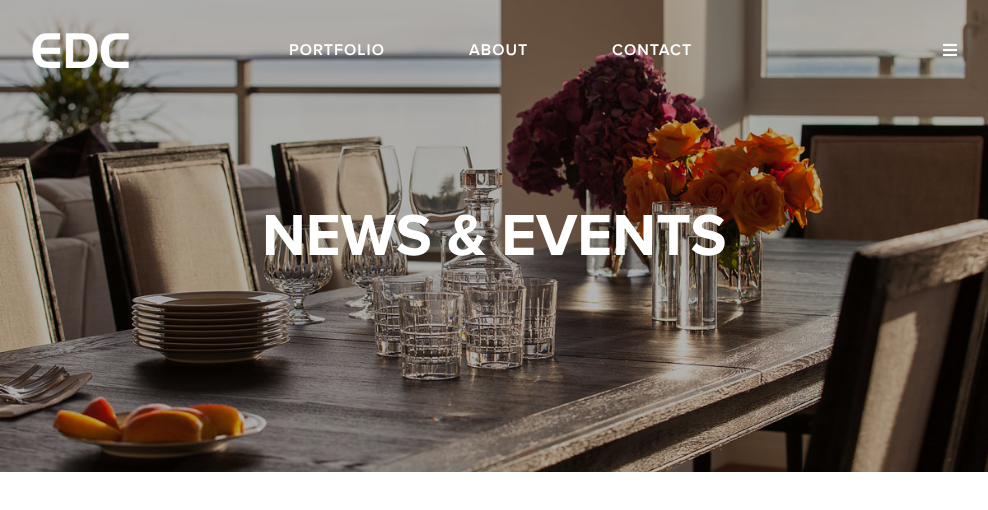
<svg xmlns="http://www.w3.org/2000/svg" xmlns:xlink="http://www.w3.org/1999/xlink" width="988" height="510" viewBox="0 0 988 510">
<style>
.cls-1{font:600 16px Proxima Nova;letter-spacing:1px;fill:#ffffff}
.cls-2{font:bold 60px Proxima Nova;fill:#ffffff}
</style>
<rect width="100%" height="100%" fill="#ffffff"/>
<image xlink:href="image2.png" x="0" y="0" width="988" height="472"/>
<image xlink:href="image0.png" x="32" y="33" width="97" height="35"/>
<image xlink:href="image1.png" x="943" y="43" width="14" height="14"/>
<text class="cls-1" x="289" y="55">PORTFOLIO</text>
<text class="cls-1" x="469" y="55">ABOUT</text>
<text class="cls-1" x="612" y="55">CONTACT</text>
<text class="cls-2" x="262" y="255">NEWS &amp; EVENTS</text>
</svg>
